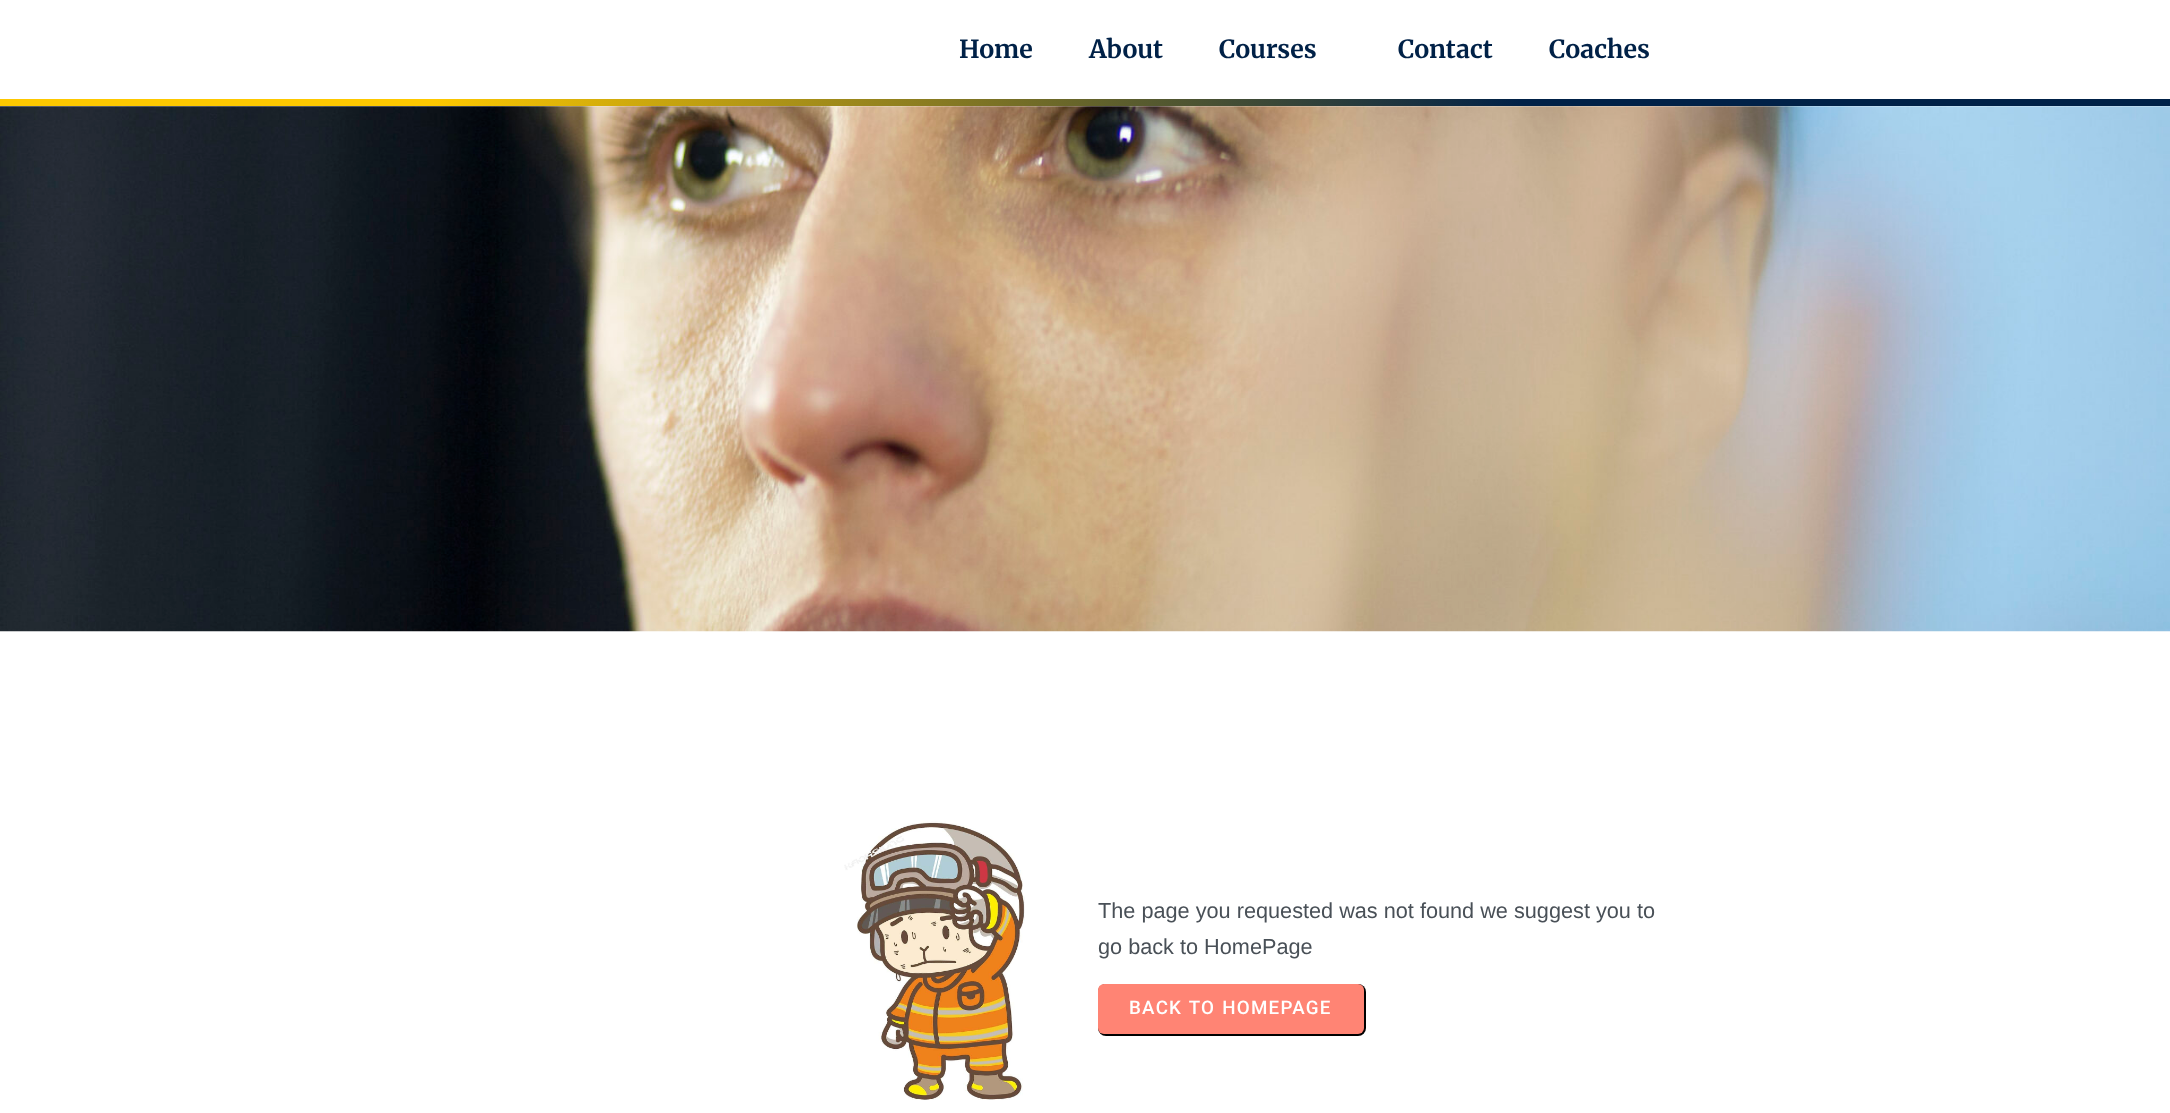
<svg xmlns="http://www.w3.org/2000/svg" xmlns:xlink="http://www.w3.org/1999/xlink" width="2170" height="1113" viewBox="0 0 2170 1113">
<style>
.cls-1{font:bold 25px Merriweather;fill:#002147}
.cls-2{font:21.7px Liberation Sans;fill:#495057}
.cls-3{font:500 18.75px Roboto;letter-spacing:1.25px;fill:#ffffff}
</style>
<defs>
<linearGradient id="g1" gradientUnits="userSpaceOnUse" x1="0" y1="103" x2="2170" y2="102"><stop offset="0.2" stop-color="#fdc800"/><stop offset="0.7" stop-color="#002147"/></linearGradient>
</defs>
<rect width="100%" height="100%" fill="#ffffff"/>
<rect fill="url(#g1)" x="0" y="99" width="2170" height="7"/>
<image xlink:href="image0.png" x="0" y="106" width="2170" height="526"/>
<image xlink:href="image1.png" x="844" y="821" width="181" height="279"/>
<rect fill="#000000" filter="blur(0.5px)" x="1098" y="984" width="268" height="52" rx="8"/>
<rect fill="#ff8474" x="1098" y="984" width="266" height="50" rx="6"/>
<text class="cls-1" x="959" y="58">Home</text>
<text class="cls-1" x="1089" y="58">About</text>
<text class="cls-1" x="1219" y="58">Courses</text>
<text class="cls-1" x="1398" y="58">Contact</text>
<text class="cls-1" x="1549" y="58">Coaches</text>
<text class="cls-2"><tspan x="1098" y="918">The page you requested was not found we suggest you to</tspan><tspan x="1098" y="954">go back to HomePage</tspan></text>
<text class="cls-3" x="1129" y="1014" word-spacing="1">BACK TO HOMEPAGE</text>
</svg>
